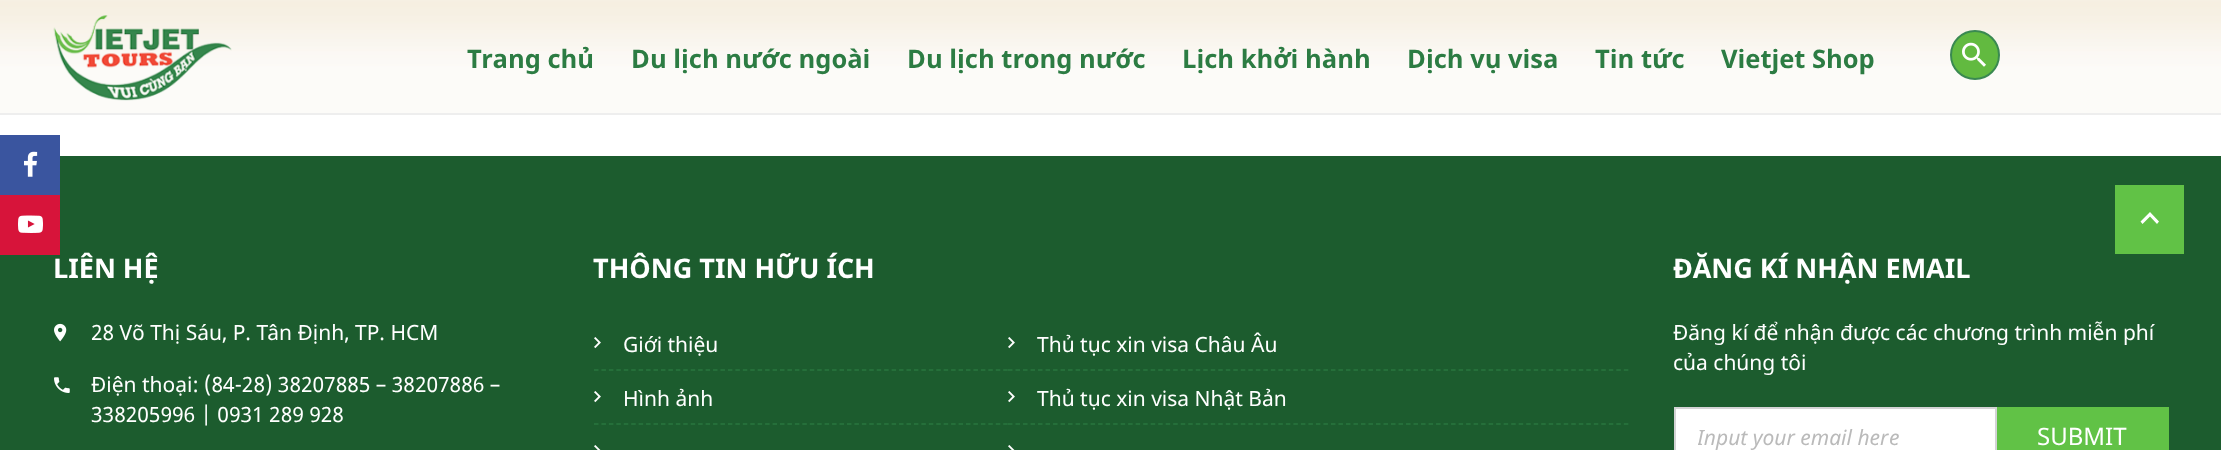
<svg xmlns="http://www.w3.org/2000/svg" xmlns:xlink="http://www.w3.org/1999/xlink" width="2221" height="450" viewBox="0 0 2221 450">
<style>
.cls-1{font:bold 25.5px Noto Sans;fill:#2c7c43}
.cls-2{font:bold 27px Noto Sans;fill:#ffffff}
.cls-3{font:21px Noto Sans;fill:#ffffff}
.cls-4{font:italic 21px Noto Sans;fill:#bababa}
.cls-5{font:24px Noto Sans;fill:#ffffff}
</style>
<defs>
<clipPath id="clip1"><rect x="1698" y="423" width="275" height="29"/></clipPath>
</defs>
<rect width="100%" height="100%" fill="#ffffff"/>
<image xlink:href="image0.png" x="0" y="0" width="2221" height="113"/>
<rect fill="#eeeeee" x="0" y="113" width="2221" height="2"/>
<image xlink:href="image1.png" x="53" y="15" width="179" height="86"/>
<circle fill="#62ba40" stroke="#3a8951" stroke-width="2" cx="1975" cy="55" r="24"/>
<image xlink:href="image2.png" x="1962" y="42" width="24" height="25"/>
<rect fill="#1c5c2e" x="0" y="156" width="2221" height="294"/>
<rect fill="#3a559f" x="0" y="135" width="60" height="60"/>
<image xlink:href="image3.png" x="24" y="151" width="14" height="26"/>
<rect fill="#61c246" x="2115" y="185" width="69" height="69"/>
<path fill="#ffffff" d="M2150 212L2159 221.5L2157 224L2150 216.5L2142.5 224L2140.5 221.5Z"/>
<image xlink:href="image5.png" x="54" y="323" width="13" height="19"/>
<image xlink:href="image6.png" x="54" y="377" width="16" height="16"/>
<path fill="none" stroke="#29763f" stroke-width="1.5" stroke-dasharray="4.5 2.94" d="M594 370H1008"/>
<image xlink:href="image7.png" x="594" y="337" width="7" height="12"/>
<path fill="none" stroke="#29763f" stroke-width="1.5" stroke-dasharray="4.5 2.94" d="M594 424H1008"/>
<image xlink:href="image7.png" x="594" y="391" width="7" height="12"/>
<image xlink:href="image8.png" x="594" y="445" width="7" height="5"/>
<path fill="none" stroke="#29763f" stroke-width="1.5" stroke-dasharray="4.5 3.01" d="M1008 370H1629"/>
<image xlink:href="image7.png" x="1008" y="337" width="7" height="12"/>
<path fill="none" stroke="#29763f" stroke-width="1.5" stroke-dasharray="4.5 3.01" d="M1008 424H1629"/>
<image xlink:href="image7.png" x="1008" y="391" width="7" height="12"/>
<image xlink:href="image8.png" x="1008" y="445" width="7" height="5"/>
<rect fill="#ffffff" stroke="#d3d3d5" stroke-width="2" x="1675" y="408" width="321" height="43"/>
<rect fill="#61c246" x="1997" y="407" width="172" height="43"/>
<text class="cls-1" x="467" y="68">Trang chủ</text>
<text class="cls-1" x="631" y="68">Du lịch nước ngoài</text>
<text class="cls-1" x="907" y="68">Du lịch trong nước</text>
<text class="cls-1" x="1182" y="68">Lịch khởi hành</text>
<text class="cls-1" x="1407" y="68">Dịch vụ visa</text>
<text class="cls-1" x="1595" y="68">Tin tức</text>
<text class="cls-1" x="1721" y="68">Vietjet Shop</text>
<text class="cls-2" x="53" y="278">LIÊN HỆ</text>
<rect fill="#d7143a" x="0" y="195" width="60" height="60"/>
<image xlink:href="image4.png" x="18" y="215" width="25" height="18"/>
<text class="cls-3" x="91" y="340">28 Võ Thị Sáu, P. Tân Định, TP. HCM</text>
<text class="cls-3"><tspan x="91" y="392">Điện thoại: (84-28) 38207885 – 38207886 –</tspan><tspan x="91" y="422">338205996 | 0931 289 928</tspan></text>
<text class="cls-2" x="593" y="278">THÔNG TIN HỮU ÍCH</text>
<text class="cls-3" x="623" y="352">Giới thiệu</text>
<text class="cls-3" x="623" y="406">Hình ảnh</text>
<text class="cls-3" x="1037" y="352">Thủ tục xin visa Châu Âu</text>
<text class="cls-3" x="1037" y="406">Thủ tục xin visa Nhật Bản</text>
<text class="cls-2" x="1673" y="278">ĐĂNG KÍ NHẬN EMAIL</text>
<text class="cls-3"><tspan x="1673" y="340">Đăng kí để nhận được các chương trình miễn phí</tspan><tspan x="1673" y="370">của chúng tôi</tspan></text>
<g clip-path="url(#clip1)">
<text class="cls-4" x="1697" y="445">Input your email here</text>
</g>
<text class="cls-5" x="2037" y="445">SUBMIT</text>
</svg>
